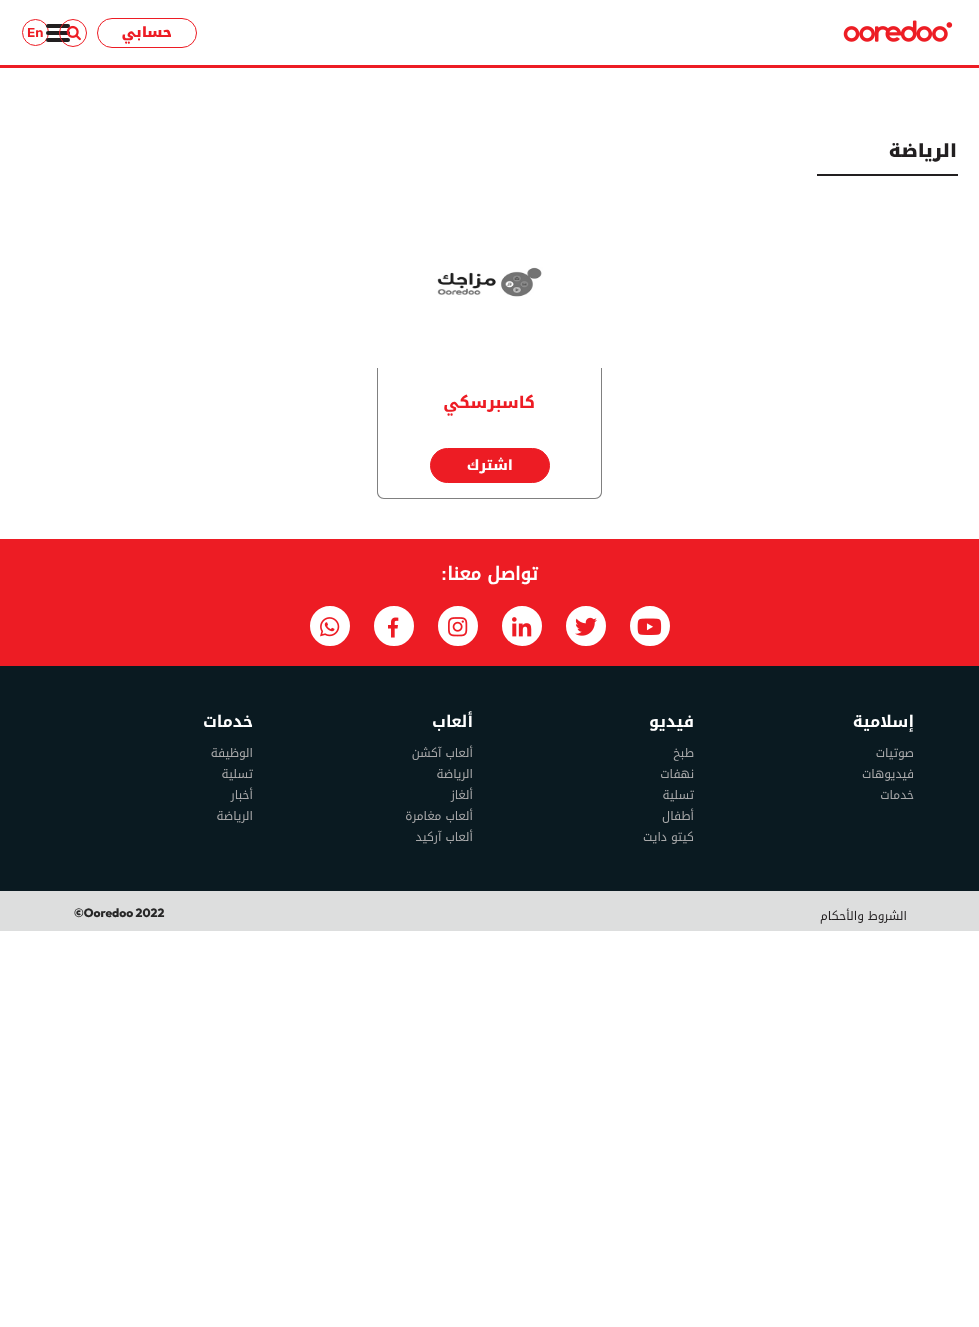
<svg xmlns="http://www.w3.org/2000/svg" xmlns:xlink="http://www.w3.org/1999/xlink" width="979" height="1327" viewBox="0 0 979 1327">
<style>
.cls-1{font:900 14px Noto Kufi Arabic;direction:rtl;fill:#ed1c24}
.cls-2{font:600 13px Rubik;fill:#ed1c24}
.cls-3{font:900 18px Noto Kufi Arabic;direction:rtl;fill:#221f20}
.cls-4{font:800 16px Noto Kufi Arabic;direction:rtl;fill:#ed1c24}
.cls-5{font:800 14px Noto Kufi Arabic;direction:rtl;fill:#ffffff}
.cls-6{font:bold 18px Noto Kufi Arabic;direction:rtl;fill:#ffffff}
.cls-7{font:bold 18px Liberation Sans;direction:rtl;fill:#ffffff}
.cls-8{font:bold 16px 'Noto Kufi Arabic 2';direction:rtl;fill:#ffffff}
.cls-9{font:12px Noto Kufi Arabic;direction:rtl;fill:#a9a9aa}
.cls-10{font:12px Noto Kufi Arabic;direction:rtl;fill:#221f20}
.cls-11{font:800 12px Outfit;fill:#272727}
</style>
<rect width="100%" height="100%" fill="#ffffff"/>
<rect fill="#ed1c24" x="0" y="65" width="979" height="3"/>
<image xlink:href="image0.png" x="843" y="20" width="110" height="22"/>
<circle fill="none" stroke="#ed1c24" cx="35.5" cy="32.5" r="13"/>
<rect fill="#221f20" x="46" y="38" width="24" height="4" rx="2"/>
<rect fill="#221f20" x="46" y="31" width="24" height="4" rx="2"/>
<rect fill="#221f20" x="46" y="24" width="24" height="4" rx="2"/>
<rect fill="none" stroke="#ed1c24" x="97.5" y="18.5" width="99" height="29" rx="14.5"/>
<circle fill="none" stroke="#ed1c24" cx="73" cy="33" r="13.5"/>
<image xlink:href="image1.png" x="66" y="25" width="15" height="16"/>
<rect fill="#221f20" x="817" y="174" width="141" height="2"/>
<image xlink:href="image2.png" x="377" y="196" width="225" height="172"/>
<path fill="#808080" fill-rule="evenodd" d="M377 368H602V492C602 496 599 499 595 499H384C380 499 377 496 377 492ZM378 368H601V492C601 495 598 498 595 498H384C381 498 378 495 378 492Z"/>
<rect fill="#ed1c24" stroke="#ed1c24" x="430.5" y="448.5" width="119" height="34" rx="17"/>
<rect fill="#ed1c24" x="0" y="539" width="979" height="127"/>
<circle fill="#ffffff" stroke="#ffffff" stroke-width="2" cx="650" cy="626" r="19"/>
<image xlink:href="image3.png" x="637" y="618" width="25" height="17"/>
<circle fill="#ffffff" stroke="#ffffff" stroke-width="2" cx="586" cy="626" r="19"/>
<image xlink:href="image4.png" x="575" y="617" width="22" height="19"/>
<circle fill="#ffffff" stroke="#ffffff" stroke-width="2" cx="522" cy="626" r="19"/>
<image xlink:href="image5.png" x="512" y="617" width="20" height="20"/>
<circle fill="#ffffff" stroke="#ffffff" stroke-width="2" cx="458" cy="626" r="19"/>
<image xlink:href="image6.png" x="448" y="617" width="20" height="20"/>
<circle fill="#ffffff" stroke="#ffffff" stroke-width="2" cx="394" cy="626" r="19"/>
<image xlink:href="image7.png" x="388" y="617" width="11" height="21"/>
<circle fill="#ffffff" stroke="#ffffff" stroke-width="2" cx="330" cy="626" r="19"/>
<image xlink:href="image8.png" x="320" y="617" width="20" height="20"/>
<rect fill="#0a1a21" x="0" y="666" width="979" height="225"/>
<rect fill="#dddede" x="0" y="891" width="979" height="40"/>
<text class="cls-1" x="172" y="37">حسابي</text>
<text class="cls-2" x="27" y="37">En</text>
<text class="cls-3" x="957" y="157">الرياضة</text>
<text class="cls-4" x="535" y="408">كاسبرسكي</text>
<text class="cls-5" x="513" y="470">اشترك</text>
<text class="cls-6" x="538" y="580">تواصل معنا</text>
<text class="cls-7" x="447" y="580">:</text>
<text class="cls-8" x="914" y="727">إسلامية</text>
<text class="cls-9"><tspan x="914" y="757">صوتيات</tspan><tspan x="914" y="778">فيديوهات</tspan><tspan x="914" y="799">خدمات</tspan></text>
<text class="cls-8" x="694" y="727">فيديو</text>
<text class="cls-9"><tspan x="694" y="757">طبخ</tspan><tspan x="694" y="778">نهفات</tspan><tspan x="694" y="799">تسلية</tspan><tspan x="694" y="820">أطفال</tspan><tspan x="694" y="841">كيتو دايت</tspan></text>
<text class="cls-8" x="473" y="727">ألعاب</text>
<text class="cls-9"><tspan x="473" y="757">ألعاب آكشن</tspan><tspan x="473" y="778">الرياضة</tspan><tspan x="473" y="799">ألغاز</tspan><tspan x="473" y="820">ألعاب مغامرة</tspan><tspan x="473" y="841">ألعاب آركيد</tspan></text>
<text class="cls-8" x="253" y="727">خدمات</text>
<text class="cls-9"><tspan x="253" y="757">الوظيفة</tspan><tspan x="253" y="778">تسلية</tspan><tspan x="253" y="799">أخبار</tspan><tspan x="253" y="820">الرياضة</tspan></text>
<text class="cls-10" x="907" y="920">الشروط والأحكام</text>
<text class="cls-11" x="74" y="917">©Ooredoo 2022</text>
</svg>
